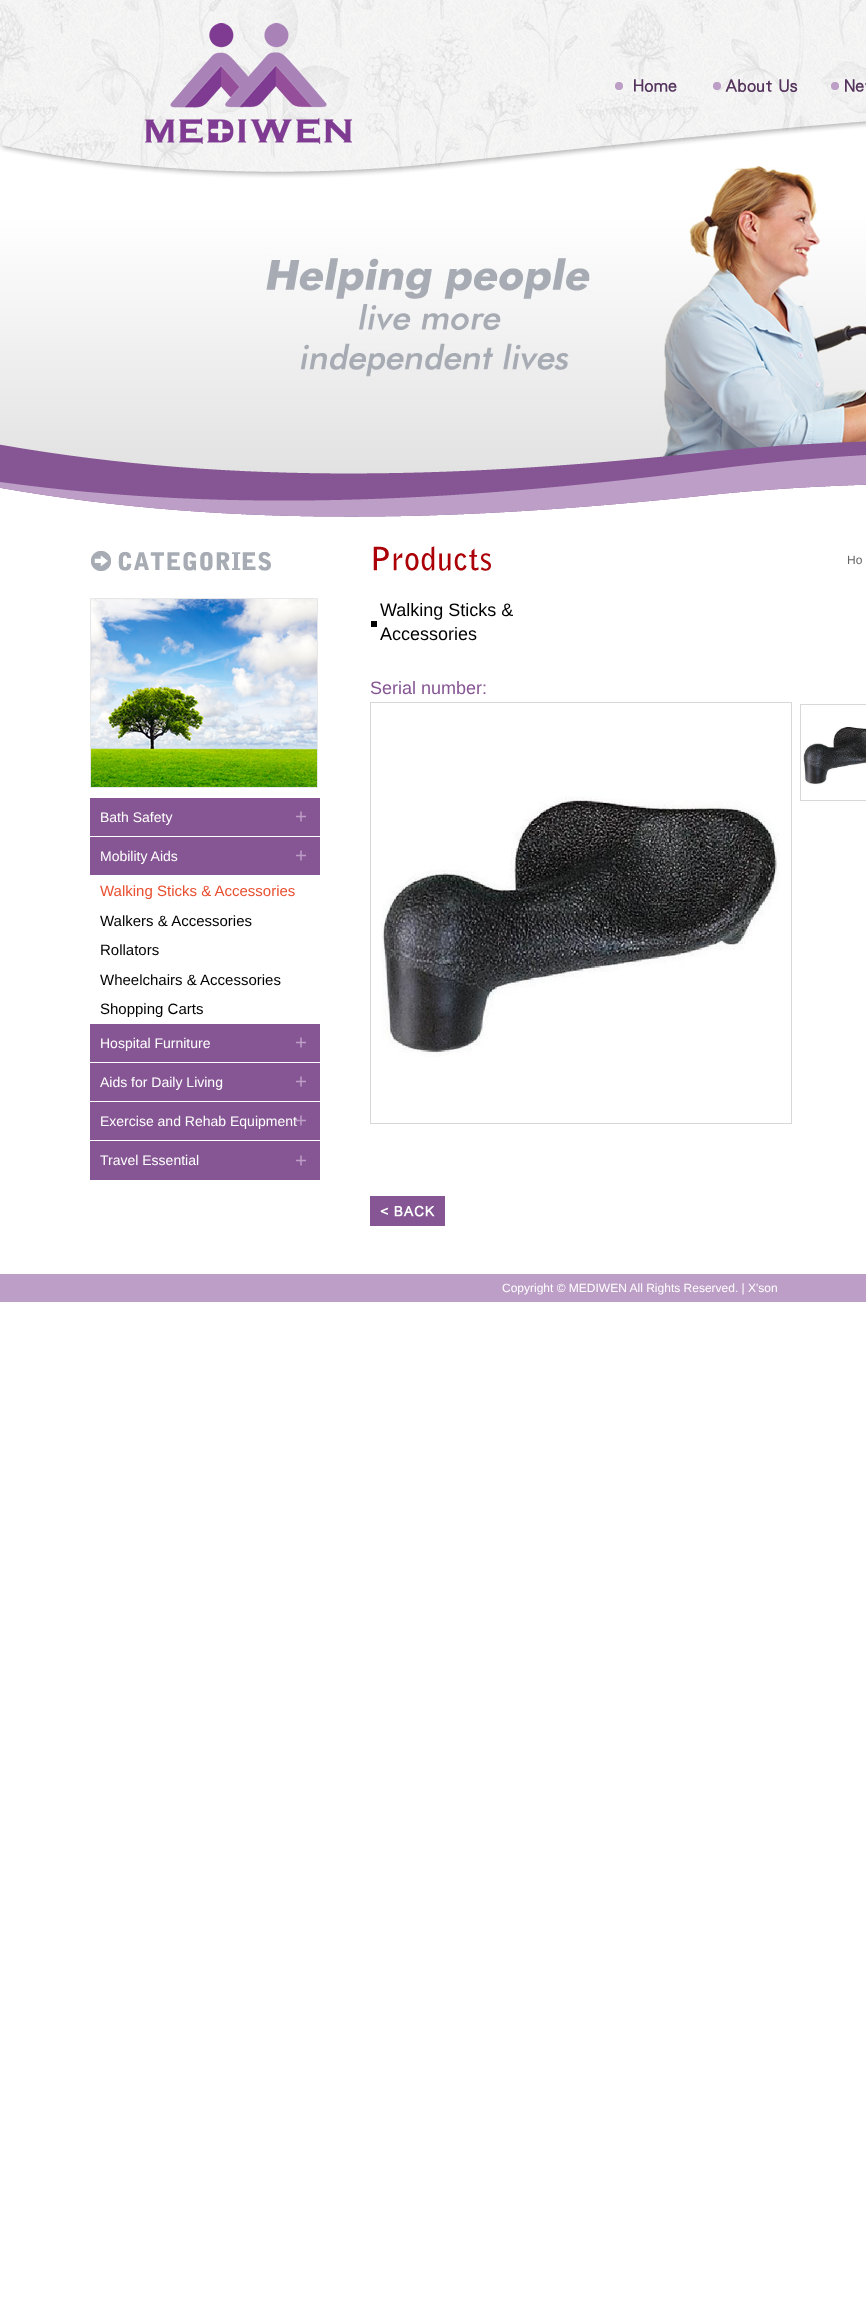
<svg xmlns="http://www.w3.org/2000/svg" xmlns:xlink="http://www.w3.org/1999/xlink" width="866" height="2305" viewBox="0 0 866 2305">
<style>
.cls-1{font:12px Liberation Sans;fill:#666666}
.cls-2{font:18px Liberation Sans;fill:#000000}
.cls-3{font:18px Liberation Sans;fill:#865694}
.cls-4{font:14px Liberation Sans;fill:#ffffff}
.cls-5{font:15px Liberation Sans;fill:#e94f31}
.cls-6{font:15px Liberation Sans;fill:#000000}
.cls-7{font:12px Liberation Sans;fill:#ffffff}
</style>
<rect width="100%" height="100%" fill="#ffffff"/>
<image xlink:href="image5.png" x="0" y="166" width="866" height="308"/>
<image xlink:href="image0.png" x="0" y="0" width="866" height="178"/>
<image xlink:href="image1.png" x="145" y="23" width="207" height="121"/>
<image xlink:href="image2.png" x="615" y="79" width="62" height="13"/>
<image xlink:href="image3.png" x="713" y="79" width="85" height="13"/>
<image xlink:href="image4.png" x="831" y="79" width="35" height="13"/>
<image xlink:href="image6.png" x="0" y="441" width="866" height="76"/>
<image xlink:href="image7.png" x="373" y="545" width="118" height="26"/>
<rect fill="#000000" x="371" y="621" width="6" height="6"/>
<rect fill="none" stroke="#d9d7d7" x="370.5" y="702.5" width="421" height="421"/>
<image xlink:href="image8.png" x="381" y="793" width="399" height="264"/>
<rect fill="none" stroke="#d9d7d7" x="800.5" y="704.5" width="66" height="96"/>
<image xlink:href="image9.png" x="803" y="726" width="63" height="59"/>
<image xlink:href="image10.png" x="370" y="1196" width="75" height="30"/>
<image xlink:href="image11.png" x="91" y="551" width="180" height="20"/>
<image xlink:href="image12.png" x="90" y="598" width="230" height="190"/>
<rect fill="#865694" x="90" y="798" width="230" height="38"/>
<image xlink:href="image13.png" x="296" y="811" width="10" height="11"/>
<rect fill="#865694" x="90" y="837" width="230" height="38"/>
<image xlink:href="image13.png" x="296" y="850" width="10" height="11"/>
<rect fill="#865694" x="90" y="1024" width="230" height="38"/>
<image xlink:href="image13.png" x="296" y="1037" width="10" height="11"/>
<rect fill="#865694" x="90" y="1063" width="230" height="38"/>
<image xlink:href="image13.png" x="296" y="1076" width="10" height="11"/>
<rect fill="#865694" x="90" y="1102" width="230" height="38"/>
<image xlink:href="image13.png" x="296" y="1115" width="10" height="11"/>
<rect fill="#865694" x="90" y="1141" width="230" height="39"/>
<image xlink:href="image13.png" x="296" y="1155" width="10" height="11"/>
<rect fill="#bd9ec7" x="0" y="1274" width="866" height="28"/>
<text class="cls-1" x="847" y="564">Ho</text>
<text class="cls-2"><tspan x="380" y="616">Walking Sticks &amp;</tspan><tspan x="380" y="640">Accessories</tspan></text>
<text class="cls-3" x="370" y="694">Serial number:</text>
<text class="cls-4" x="100" y="822">Bath Safety</text>
<text class="cls-4" x="100" y="861">Mobility Aids</text>
<text class="cls-5" x="100" y="896">Walking Sticks &amp; Accessories</text>
<text class="cls-6"><tspan x="100" y="926">Walkers &amp; Accessories</tspan><tspan x="100" y="955">Rollators</tspan></text>
<text class="cls-6"><tspan x="100" y="985">Wheelchairs &amp; Accessories</tspan><tspan x="100" y="1014">Shopping Carts</tspan></text>
<text class="cls-4" x="100" y="1048">Hospital Furniture</text>
<text class="cls-4" x="100" y="1087">Aids for Daily Living</text>
<text class="cls-4" x="100" y="1126">Exercise and Rehab Equipment</text>
<text class="cls-4" x="100" y="1165">Travel Essential</text>
<text class="cls-7" x="502" y="1292">Copyright © MEDIWEN All Rights Reserved. | X'son</text>
</svg>
